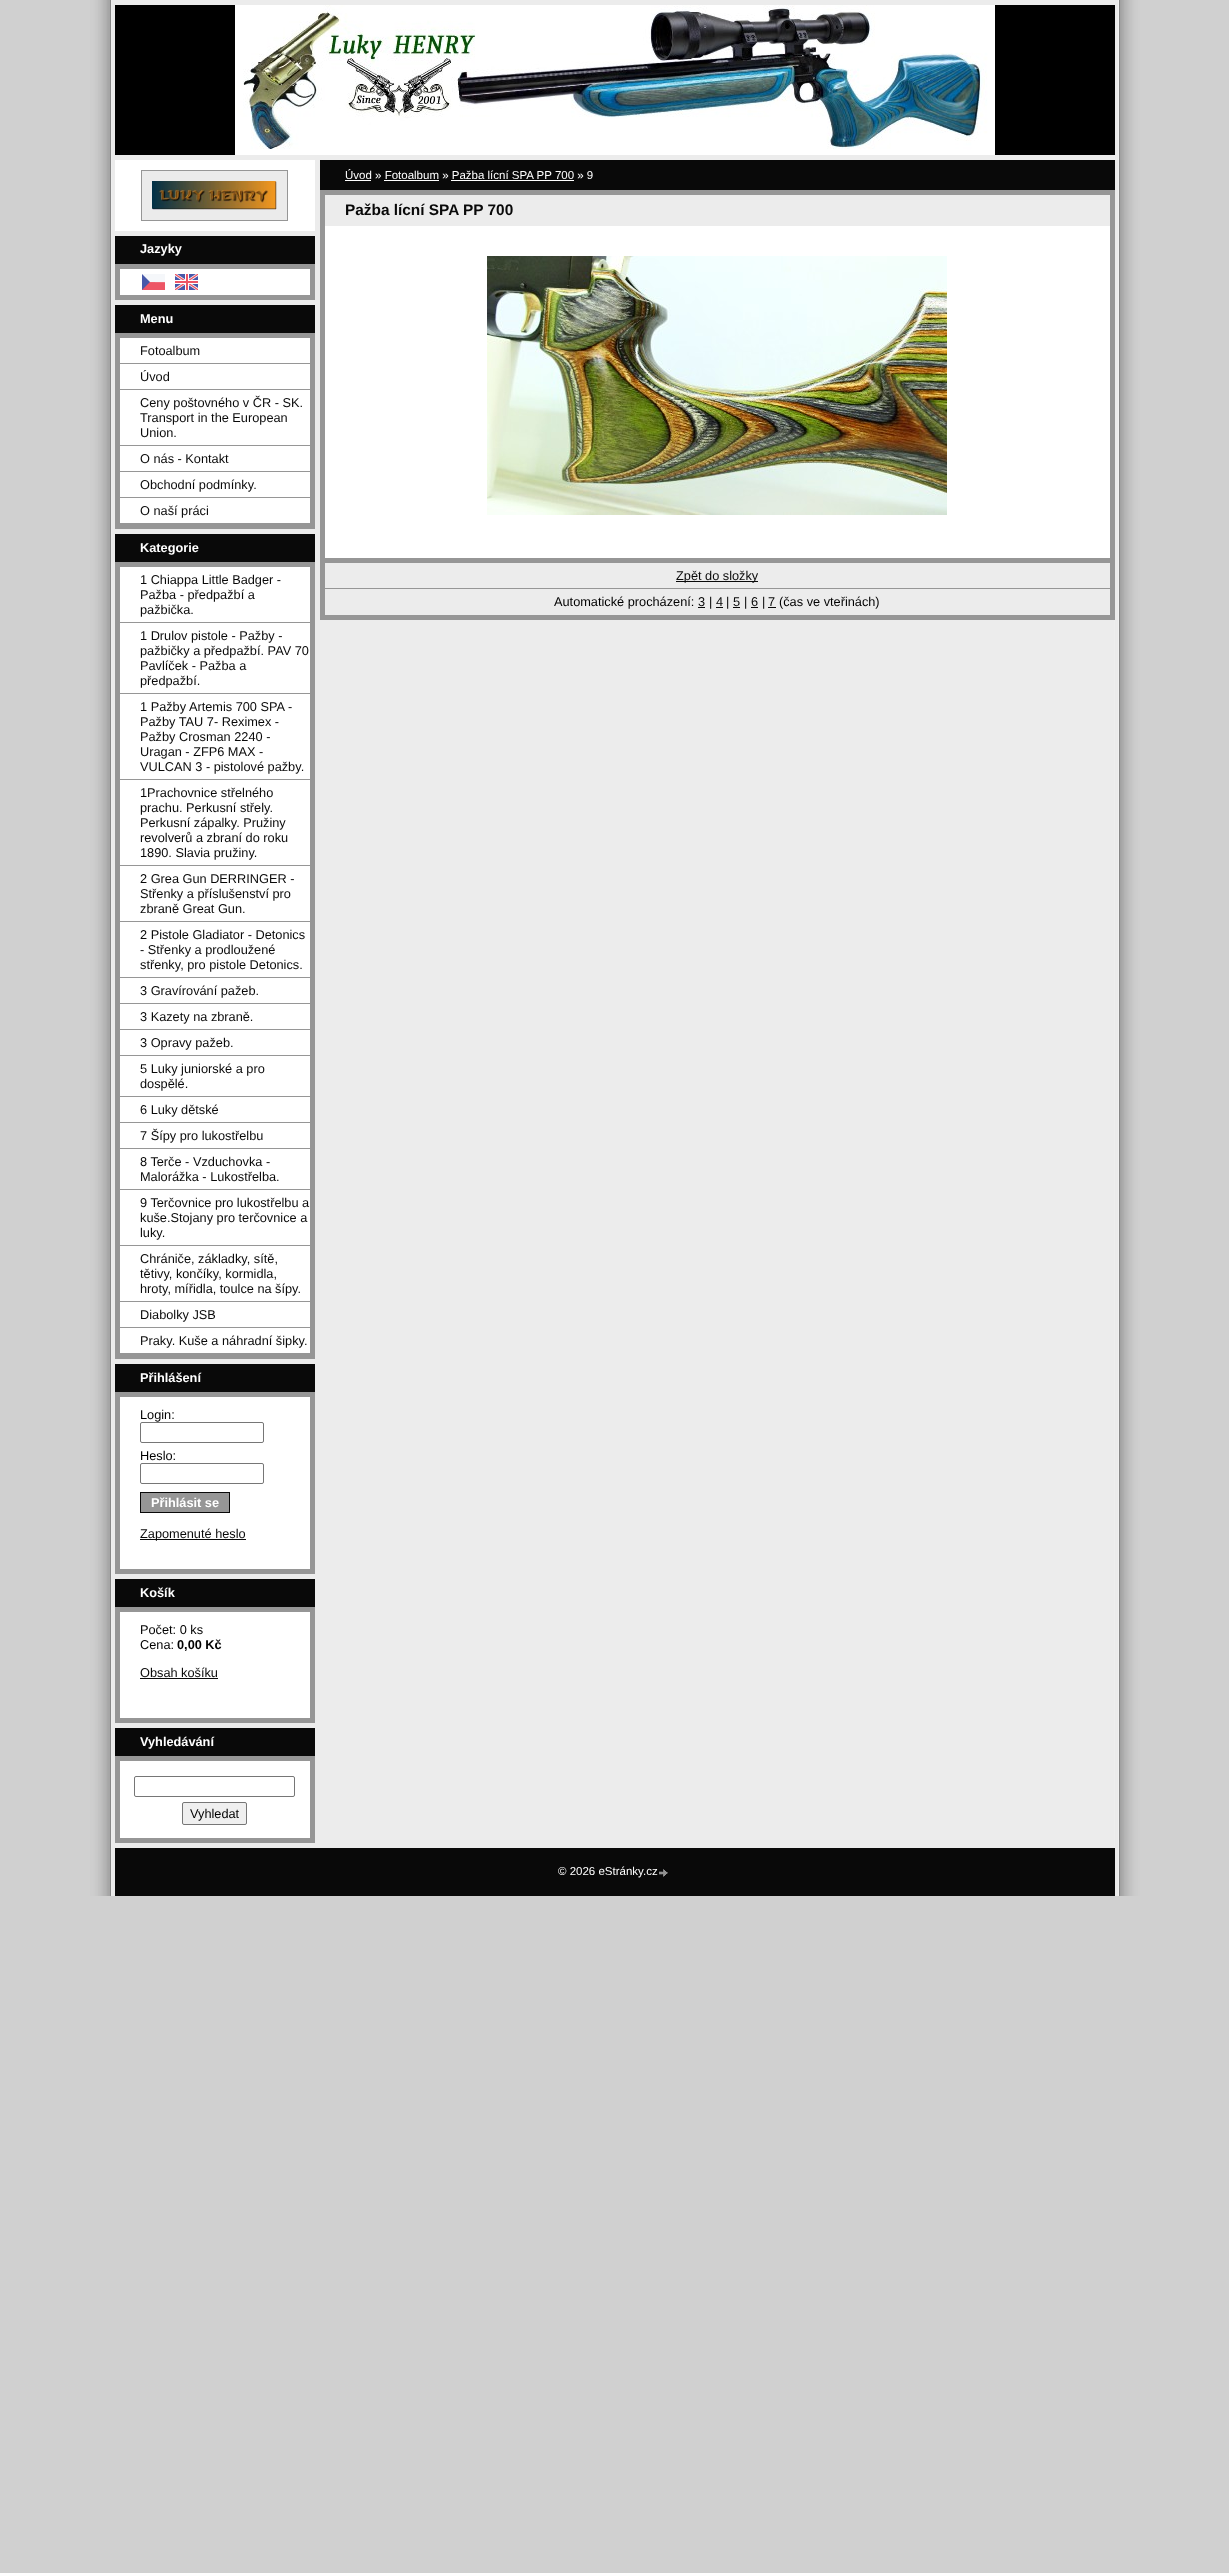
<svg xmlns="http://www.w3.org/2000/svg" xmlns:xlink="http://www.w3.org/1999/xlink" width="1229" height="2573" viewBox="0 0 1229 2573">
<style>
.cls-1{font:bold 12.75px Liberation Sans;fill:#ffffff}
.cls-2{font:12.75px Liberation Sans;fill:#090909}
.cls-3{font:12.75px Liberation Sans;fill:#000000}
.cls-4{font:bold 12.75px Liberation Sans;fill:#000000}
.cls-5{font:11.5px Liberation Sans;fill:#ffffff}
.cls-6{font:bold 15.4px Liberation Sans;fill:#090909}
</style>
<rect width="100%" height="100%" fill="#d0d0d0"/>
<image xlink:href="image0.png" x="90" y="0" width="1050" height="1896"/>
<rect fill="#000000" x="115" y="5" width="1000" height="150"/>
<image xlink:href="image1.png" x="235" y="5" width="760" height="150"/>
<rect fill="#ffffff" x="115" y="160" width="200" height="71"/>
<rect fill="#ebebeb" stroke="#969696" x="141.5" y="170.5" width="146" height="50"/>
<image xlink:href="image2.png" x="152" y="181" width="125" height="29"/>
<rect fill="#090909" x="115" y="236" width="200" height="28"/>
<rect fill="#ffffff" stroke="#969696" stroke-width="5" x="117.5" y="266.5" width="195" height="31"/>
<image xlink:href="image3.png" x="142" y="274" width="23" height="16"/>
<image xlink:href="image4.png" x="175" y="274" width="23" height="16"/>
<rect fill="#090909" x="115" y="305" width="200" height="28"/>
<rect fill="#ffffff" x="120" y="338" width="190" height="185"/>
<rect fill="none" stroke="#969696" stroke-width="5" x="117.5" y="335.5" width="195" height="191"/>
<rect fill="#969696" x="120" y="363" width="190" height="1"/>
<rect fill="#969696" x="120" y="389" width="190" height="1"/>
<rect fill="#969696" x="120" y="445" width="190" height="1"/>
<rect fill="#969696" x="120" y="471" width="190" height="1"/>
<rect fill="#969696" x="120" y="497" width="190" height="1"/>
<rect fill="#969696" x="120" y="523" width="190" height="1"/>
<rect fill="#090909" x="115" y="534" width="200" height="28"/>
<rect fill="#ffffff" x="120" y="567" width="190" height="786"/>
<rect fill="none" stroke="#969696" stroke-width="5" x="117.5" y="564.5" width="195" height="792"/>
<rect fill="#969696" x="120" y="622" width="190" height="1"/>
<rect fill="#969696" x="120" y="693" width="190" height="1"/>
<rect fill="#969696" x="120" y="779" width="190" height="1"/>
<rect fill="#969696" x="120" y="865" width="190" height="1"/>
<rect fill="#969696" x="120" y="921" width="190" height="1"/>
<rect fill="#969696" x="120" y="977" width="190" height="1"/>
<rect fill="#969696" x="120" y="1003" width="190" height="1"/>
<rect fill="#969696" x="120" y="1029" width="190" height="1"/>
<rect fill="#969696" x="120" y="1055" width="190" height="1"/>
<rect fill="#969696" x="120" y="1096" width="190" height="1"/>
<rect fill="#969696" x="120" y="1122" width="190" height="1"/>
<rect fill="#969696" x="120" y="1148" width="190" height="1"/>
<rect fill="#969696" x="120" y="1189" width="190" height="1"/>
<rect fill="#969696" x="120" y="1245" width="190" height="1"/>
<rect fill="#969696" x="120" y="1301" width="190" height="1"/>
<rect fill="#969696" x="120" y="1327" width="190" height="1"/>
<rect fill="#969696" x="120" y="1353" width="190" height="1"/>
<rect fill="#090909" x="115" y="1364" width="200" height="28"/>
<rect fill="#ffffff" stroke="#969696" stroke-width="5" x="117.5" y="1394.5" width="195" height="177"/>
<rect fill="none" stroke="#767676" x="140.5" y="1422.5" width="123" height="20" rx="1.5"/>
<rect fill="none" stroke="#767676" x="140.5" y="1463.5" width="123" height="20" rx="1.5"/>
<rect fill="#969696" stroke="#090909" x="140.5" y="1492.5" width="89" height="20"/>
<rect fill="#090909" x="140" y="1539" width="106" height="1"/>
<rect fill="#090909" x="115" y="1579" width="200" height="28"/>
<rect fill="#ffffff" stroke="#969696" stroke-width="5" x="117.5" y="1609.5" width="195" height="111"/>
<rect fill="#090909" x="140" y="1678" width="78" height="1"/>
<rect fill="#090909" x="115" y="1728" width="200" height="28"/>
<rect fill="#ffffff" stroke="#969696" stroke-width="5" x="117.5" y="1758.5" width="195" height="82"/>
<rect fill="none" stroke="#767676" x="134.5" y="1776.5" width="160" height="20" rx="1.5"/>
<rect fill="#efefef" stroke="#767676" x="182.5" y="1802.5" width="64" height="22" rx="1.5"/>
<rect fill="#090909" x="320" y="160" width="795" height="30"/>
<rect fill="#ffffff" x="345" y="180" width="26" height="1"/>
<rect fill="#ffffff" x="384" y="180" width="55" height="1"/>
<rect fill="#ffffff" x="451" y="180" width="123" height="1"/>
<rect fill="#ffffff" x="325" y="226" width="785" height="332"/>
<rect fill="none" stroke="#969696" stroke-width="5" x="322.5" y="192.5" width="790" height="425"/>
<image xlink:href="image5.png" x="487" y="256" width="460" height="259"/>
<rect fill="#969696" x="325" y="558" width="785" height="5"/>
<rect fill="#090909" x="676" y="581" width="82" height="1"/>
<rect fill="#969696" x="325" y="588" width="785" height="1"/>
<rect fill="#090909" x="698" y="607" width="7" height="1"/>
<rect fill="#090909" x="716" y="607" width="7" height="1"/>
<rect fill="#090909" x="733" y="607" width="7" height="1"/>
<rect fill="#090909" x="751" y="607" width="7" height="1"/>
<rect fill="#090909" x="768" y="607" width="8" height="1"/>
<rect fill="#090909" x="115" y="1848" width="1000" height="48"/>
<image xlink:href="image6.png" x="659" y="1869" width="9" height="8"/>
<text class="cls-1" x="140" y="253">Jazyky</text>
<text class="cls-1" x="140" y="323">Menu</text>
<text class="cls-2" x="140" y="355">Fotoalbum</text>
<text class="cls-2" x="140" y="381">Úvod</text>
<text class="cls-2"><tspan x="140" y="407">Ceny poštovného v ČR - SK.</tspan><tspan x="140" y="422">Transport in the European</tspan><tspan x="140" y="437">Union.</tspan></text>
<text class="cls-2" x="140" y="463">O nás - Kontakt</text>
<text class="cls-2" x="140" y="489">Obchodní podmínky.</text>
<text class="cls-2" x="140" y="515">O naší práci</text>
<text class="cls-1" x="140" y="552">Kategorie</text>
<text class="cls-2"><tspan x="140" y="584">1 Chiappa Little Badger -</tspan><tspan x="140" y="599">Pažba - předpažbí a</tspan><tspan x="140" y="614">pažbička.</tspan></text>
<text class="cls-2"><tspan x="140" y="640">1 Drulov pistole - Pažby -</tspan><tspan x="140" y="655">pažbičky a předpažbí. PAV 70</tspan><tspan x="140" y="670">Pavlíček - Pažba a</tspan><tspan x="140" y="685">předpažbí.</tspan></text>
<text class="cls-2"><tspan x="140" y="711">1 Pažby Artemis 700 SPA -</tspan><tspan x="140" y="726">Pažby TAU 7- Reximex -</tspan><tspan x="140" y="741">Pažby Crosman 2240 -</tspan><tspan x="140" y="756">Uragan - ZFP6 MAX -</tspan><tspan x="140" y="771">VULCAN 3 - pistolové pažby.</tspan></text>
<text class="cls-2"><tspan x="140" y="797">1Prachovnice střelného</tspan><tspan x="140" y="812">prachu. Perkusní střely.</tspan><tspan x="140" y="827">Perkusní zápalky. Pružiny</tspan><tspan x="140" y="842">revolverů a zbraní do roku</tspan><tspan x="140" y="857">1890. Slavia pružiny.</tspan></text>
<text class="cls-2"><tspan x="140" y="883">2 Grea Gun DERRINGER -</tspan><tspan x="140" y="898">Střenky a příslušenství pro</tspan><tspan x="140" y="913">zbraně Great Gun.</tspan></text>
<text class="cls-2"><tspan x="140" y="939">2 Pistole Gladiator - Detonics</tspan><tspan x="140" y="954">- Střenky a prodloužené</tspan><tspan x="140" y="969">střenky, pro pistole Detonics.</tspan></text>
<text class="cls-2" x="140" y="995">3 Gravírování pažeb.</text>
<text class="cls-2" x="140" y="1021">3 Kazety na zbraně.</text>
<text class="cls-2" x="140" y="1047">3 Opravy pažeb.</text>
<text class="cls-2"><tspan x="140" y="1073">5 Luky juniorské a pro</tspan><tspan x="140" y="1088">dospělé.</tspan></text>
<text class="cls-2" x="140" y="1114">6 Luky dětské</text>
<text class="cls-2" x="140" y="1140">7 Šípy pro lukostřelbu</text>
<text class="cls-2"><tspan x="140" y="1166">8 Terče - Vzduchovka -</tspan><tspan x="140" y="1181">Malorážka - Lukostřelba.</tspan></text>
<text class="cls-2"><tspan x="140" y="1207">9 Terčovnice pro lukostřelbu a</tspan><tspan x="140" y="1222">kuše.Stojany pro terčovnice a</tspan><tspan x="140" y="1237">luky.</tspan></text>
<text class="cls-2"><tspan x="140" y="1263">Chrániče, základky, sítě,</tspan><tspan x="140" y="1278">tětivy, končíky, kormidla,</tspan><tspan x="140" y="1293">hroty, mířidla, toulce na šípy.</tspan></text>
<text class="cls-2" x="140" y="1319">Diabolky JSB</text>
<text class="cls-2" x="140" y="1345">Praky. Kuše a náhradní šipky.</text>
<text class="cls-1" x="140" y="1382">Přihlášení</text>
<text class="cls-3" x="140" y="1419">Login:</text>
<text class="cls-3" x="140" y="1460">Heslo:</text>
<text class="cls-1" x="151" y="1507">Přihlásit se</text>
<text class="cls-2" x="140" y="1538">Zapomenuté heslo</text>
<text class="cls-1" x="140" y="1597">Košík</text>
<text class="cls-3"><tspan x="140" y="1634">Počet: 0 ks</tspan><tspan x="140" y="1649">Cena:</tspan></text>
<text class="cls-4" x="177" y="1649">0,00 Kč</text>
<text class="cls-2" x="140" y="1677">Obsah košíku</text>
<text class="cls-1" x="140" y="1746">Vyhledávání</text>
<text class="cls-3" x="190" y="1818">Vyhledat</text>
<text class="cls-5" x="345" y="179">Úvod » Fotoalbum » Pažba lícní SPA PP 700 » 9</text>
<text class="cls-6" x="345" y="215">Pažba lícní SPA PP 700</text>
<text class="cls-2" x="676" y="580">Zpět do složky</text>
<text class="cls-3" x="554" y="606">Automatické procházení:</text>
<text class="cls-2" x="698" y="606">3</text>
<text class="cls-3" x="709" y="606">|</text>
<text class="cls-2" x="716" y="606">4</text>
<text class="cls-3" x="726" y="606">|</text>
<text class="cls-2" x="733" y="606">5</text>
<text class="cls-3" x="744" y="606">|</text>
<text class="cls-2" x="751" y="606">6</text>
<text class="cls-3" x="762" y="606">|</text>
<text class="cls-2" x="768" y="606">7</text>
<text class="cls-3" x="779" y="606">(čas ve vteřinách)</text>
<text class="cls-5" x="558" y="1875">© 2026 eStránky.cz</text>
</svg>
